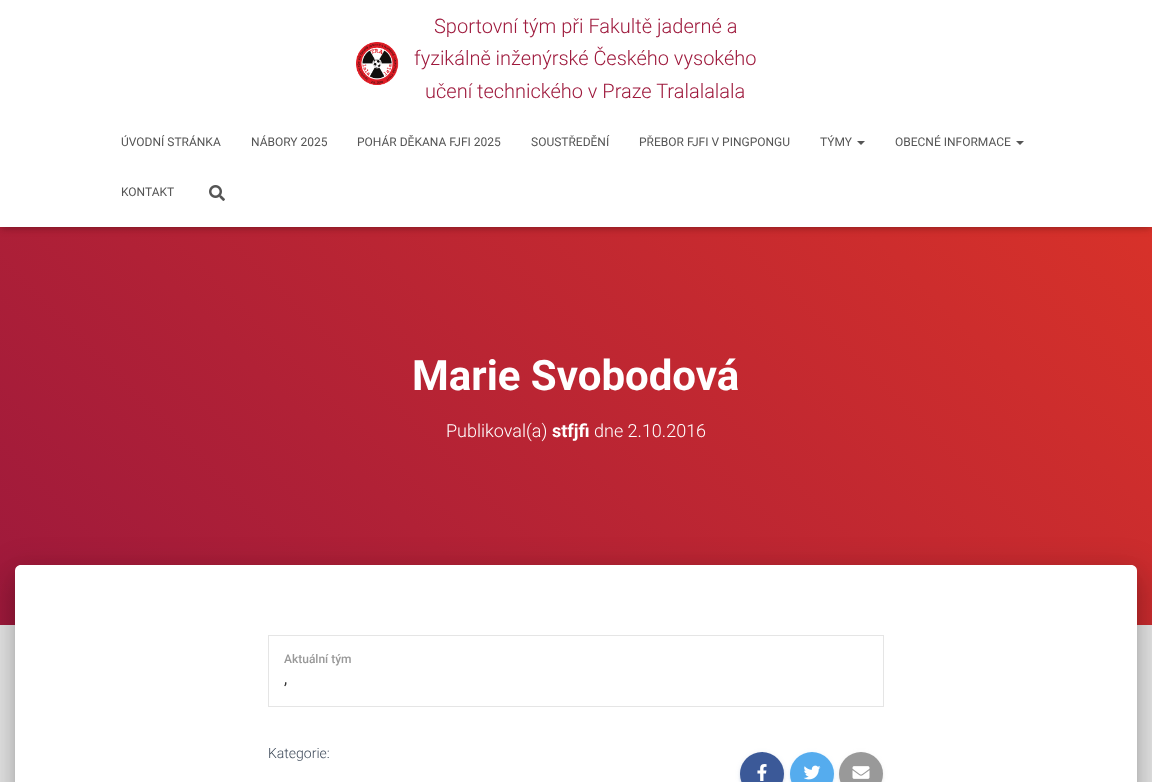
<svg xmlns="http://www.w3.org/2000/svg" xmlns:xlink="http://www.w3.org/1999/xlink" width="1152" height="782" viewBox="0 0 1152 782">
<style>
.cls-1{font:300 20px Roboto;fill:#9e193c}
.cls-2{font:12px Roboto;fill:#555555}
.cls-3{font:bold 42px Roboto;fill:#ffffff}
.cls-4{font:300 18px Roboto;fill:#ffffff}
.cls-5{font:bold 18px Roboto;fill:#ffffff}
.cls-6{font:500 12px Roboto;fill:#999999}
.cls-7{font:16px Roboto;fill:#333333}
.cls-8{font:300 14px Roboto;fill:#3c4858}
</style>
<defs>
<linearGradient id="g1" gradientUnits="userSpaceOnUse" x1="132" y1="757" x2="1020" y2="-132"><stop offset="0" stop-color="#9e193c"/><stop offset="1" stop-color="#e03527"/></linearGradient>
</defs>
<rect width="100%" height="100%" fill="#e5e5e5"/>
<rect fill="url(#g1)" x="0" y="227" width="1152" height="398"/>
<rect fill="#000000" fill-opacity="0.1" filter="blur(2.5px)" x="2" y="6" width="1148" height="223"/>
<rect fill="#000000" fill-opacity="0.12" filter="blur(5px)" x="0" y="1" width="1152" height="227"/>
<rect fill="#000000" fill-opacity="0.42" filter="blur(5px)" x="6" y="7" width="1140" height="215"/>
<rect fill="#ffffff" x="0" y="0" width="1152" height="227"/>
<image xlink:href="image0.png" x="356" y="42" width="43" height="43"/>
<path fill="#555555" d="M857 141H865L861 145Z"/>
<path fill="#555555" d="M1016 141H1024L1020 145Z"/>
<image xlink:href="image1.png" x="209" y="185" width="16" height="16"/>
<rect fill="#000000" fill-opacity="0.2" filter="blur(5px)" x="20" y="578" width="1112" height="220" rx="1"/>
<rect fill="#000000" fill-opacity="0.12" filter="blur(15px)" x="10" y="566" width="1132" height="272" rx="11"/>
<rect fill="#000000" fill-opacity="0.14" filter="blur(12px)" x="13" y="579" width="1126" height="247" rx="8"/>
<path fill="#ffffff" d="M21 565H1131C1134.5 565 1137 567.5 1137 571V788H15V571C15 567.5 17.5 565 21 565Z"/>
<rect fill="none" stroke="#e5e5e5" x="268.5" y="635.5" width="615" height="71"/>
<rect fill="#3b5998" fill-opacity="0.12" filter="blur(2.5px)" x="740" y="753" width="44" height="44" rx="22"/>
<rect fill="#3b5998" fill-opacity="0.14" filter="blur(1px)" x="740" y="754" width="44" height="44" rx="22"/>
<circle fill="#3b5998" cx="762" cy="774" r="22"/>
<image xlink:href="image2.png" x="757" y="764" width="10" height="17"/>
<rect fill="#55acee" fill-opacity="0.12" filter="blur(2.5px)" x="790" y="753" width="44" height="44" rx="22"/>
<rect fill="#55acee" fill-opacity="0.14" filter="blur(1px)" x="790" y="754" width="44" height="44" rx="22"/>
<circle fill="#55acee" cx="812" cy="774" r="22"/>
<image xlink:href="image3.png" x="803" y="765" width="18" height="15"/>
<rect fill="#999999" fill-opacity="0.12" filter="blur(2.5px)" x="839" y="753" width="44" height="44" rx="22"/>
<rect fill="#999999" fill-opacity="0.14" filter="blur(1px)" x="839" y="754" width="44" height="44" rx="22"/>
<circle fill="#999999" cx="861" cy="774" r="22"/>
<image xlink:href="image4.png" x="852" y="766" width="18" height="13"/>
<text class="cls-1" x="434" y="33">Sportovní tým při Fakultě jaderné a</text>
<text class="cls-1" x="414" y="65">fyzikálně inženýrské Českého vysokého</text>
<text class="cls-1" x="425" y="98">učení technického v Praze Tralalalala</text>
<text class="cls-2" x="121" y="146">ÚVODNÍ STRÁNKA</text>
<text class="cls-2" x="251" y="146">NÁBORY 2025</text>
<text class="cls-2" x="357" y="146">POHÁR DĚKANA FJFI 2025</text>
<text class="cls-2" x="531" y="146">SOUSTŘEDĚNÍ</text>
<text class="cls-2" x="639" y="146">PŘEBOR FJFI V PINGPONGU</text>
<text class="cls-2" x="820" y="146">TÝMY</text>
<text class="cls-2" x="895" y="146">OBECNÉ INFORMACE</text>
<text class="cls-2" x="121" y="196">KONTAKT</text>
<text class="cls-3" x="412" y="390">Marie Svobodová</text>
<text class="cls-4" x="446" y="437">Publikoval(a)</text>
<text class="cls-5" x="552" y="437">stfjfi</text>
<text class="cls-4" x="594" y="437">dne 2.10.2016</text>
<text class="cls-6" x="284" y="663">Aktuální tým</text>
<text class="cls-7" x="284" y="684">,</text>
<text class="cls-8" x="268" y="758">Kategorie:</text>
</svg>
